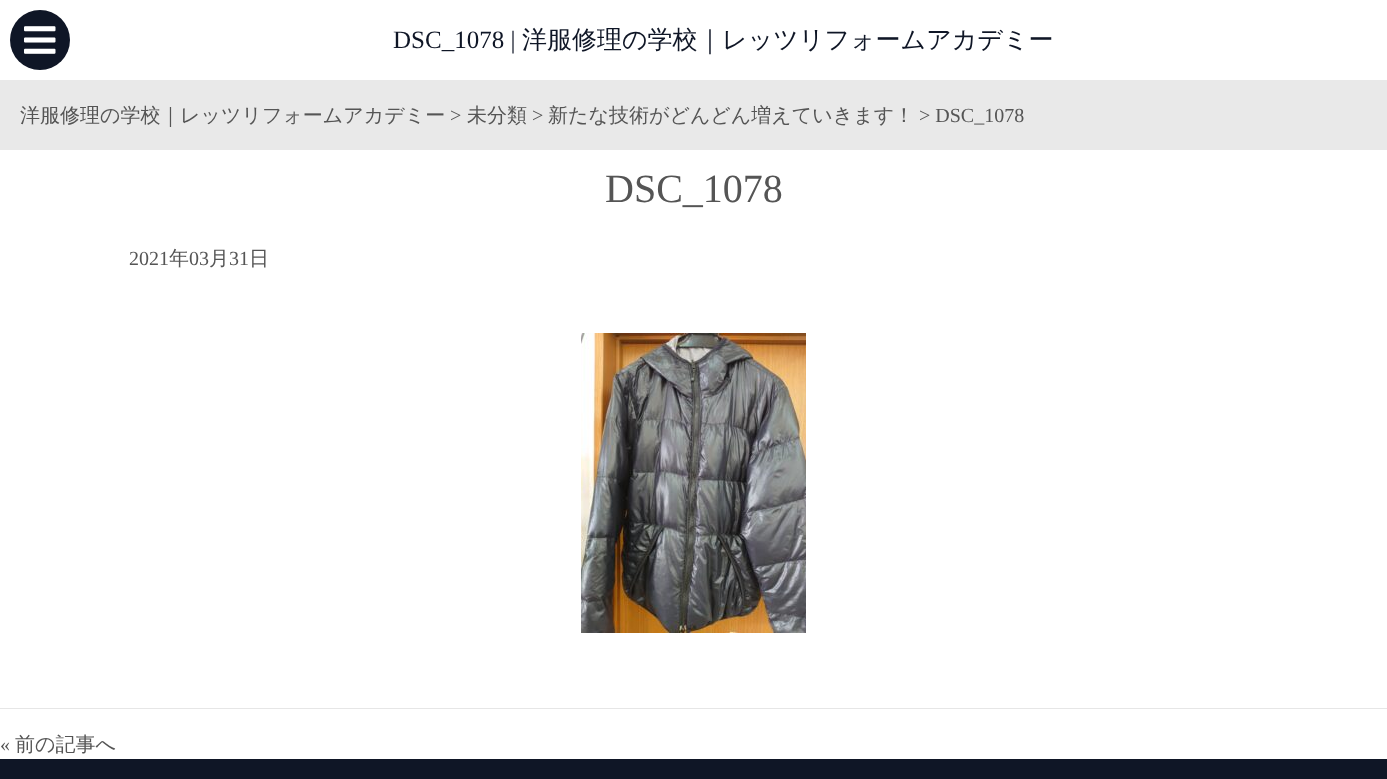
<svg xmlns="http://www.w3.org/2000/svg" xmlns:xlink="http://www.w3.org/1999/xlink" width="1387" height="779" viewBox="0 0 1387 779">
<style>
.cls-1{font:25px Liberation Serif;fill:#0f1626}
.cls-2{font:500 25px WenQuanYi Zen Hei;fill:#0f1626}
.cls-3{font:500 20px WenQuanYi Zen Hei;fill:#555555}
.cls-4{font:20px Liberation Serif;fill:#555555}
.cls-5{font:40px Liberation Serif;fill:#555555}
</style>
<rect width="100%" height="100%" fill="#ffffff"/>
<circle fill="#0f1626" cx="40" cy="40" r="30"/>
<image xlink:href="image0.png" x="24" y="26" width="32" height="28"/>
<rect fill="#e9e9e9" x="0" y="80" width="1387" height="70"/>
<image xlink:href="image1.png" x="581" y="333" width="225" height="300"/>
<rect fill="#e6e6e6" x="0" y="708" width="1387" height="1"/>
<rect fill="#0f1626" x="0" y="759" width="1387" height="20"/>
<text class="cls-1" x="393" y="48">DSC_1078 |</text>
<text class="cls-2" x="522" y="48">洋服修理の学校｜レッツリフォームアカデミー</text>
<text class="cls-3" x="20" y="122">洋服修理の学校｜レッツリフォームアカデミー</text>
<text class="cls-4" x="450" y="122">&gt;</text>
<text class="cls-3" x="467" y="122">未分類</text>
<text class="cls-4" x="532" y="122">&gt;</text>
<text class="cls-3" x="548" y="122">新たな技術がどんどん増えていきます！</text>
<text class="cls-4" x="919" y="122">&gt; DSC_1078</text>
<text class="cls-5" x="605" y="202">DSC_1078</text>
<text class="cls-4" x="129" y="265">2021</text>
<text class="cls-3" x="169" y="265">年</text>
<text class="cls-4" x="189" y="265">03</text>
<text class="cls-3" x="209" y="265">月</text>
<text class="cls-4" x="229" y="265">31</text>
<text class="cls-3" x="249" y="265">日</text>
<text class="cls-4" x="0" y="751">«</text>
<text class="cls-3" x="15" y="751">前の記事へ</text>
</svg>
